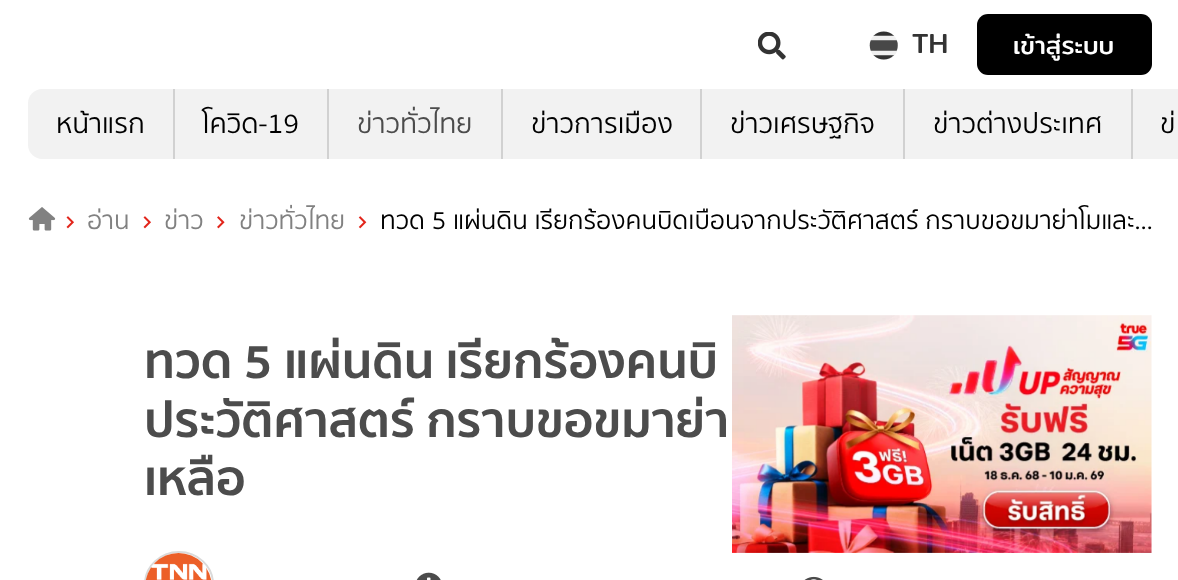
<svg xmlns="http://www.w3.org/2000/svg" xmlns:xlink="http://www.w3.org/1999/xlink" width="1178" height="580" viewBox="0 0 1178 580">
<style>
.cls-1{font:28px Mitr;fill:#333333}
.cls-2{font:25px Mitr;fill:#ffffff}
.cls-3{font:28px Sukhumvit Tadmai;fill:#000000}
.cls-4{font:28px Sukhumvit Tadmai;fill:#4c4c4c}
.cls-5{font:25.75px Sukhumvit Tadmai;fill:#818181}
.cls-6{font:25.75px Sukhumvit Tadmai;fill:#000000}
.cls-7{font:bold 49px Sukhumvit Tadmai;fill:#4c4c4c}
</style>
<rect width="100%" height="100%" fill="#ffffff"/>
<image xlink:href="image0.png" x="758" y="32" width="28" height="28"/>
<circle fill="#efefef" cx="884" cy="46" r="14"/>
<image xlink:href="image1.png" x="869" y="31" width="29" height="29"/>
<rect fill="#000000" x="977" y="14" width="175" height="61" rx="11"/>
<path fill="#f2f2f2" d="M42 89H173V159H42C34.5 159 28 152.5 28 145V103C28 95.5 34.5 89 42 89Z"/>
<rect fill="#f2f2f2" x="175" y="89" width="152" height="70"/>
<rect fill="#d1d1d1" x="173" y="89" width="2" height="70"/>
<rect fill="#f2f2f2" x="329" y="89" width="172" height="70"/>
<rect fill="#d1d1d1" x="327" y="89" width="2" height="70"/>
<rect fill="#f2f2f2" x="503" y="89" width="197" height="70"/>
<rect fill="#d1d1d1" x="501" y="89" width="2" height="70"/>
<rect fill="#f2f2f2" x="702" y="89" width="201" height="70"/>
<rect fill="#d1d1d1" x="700" y="89" width="2" height="70"/>
<rect fill="#f2f2f2" x="905" y="89" width="226" height="70"/>
<rect fill="#d1d1d1" x="903" y="89" width="2" height="70"/>
<rect fill="#f2f2f2" x="1133" y="89" width="45" height="70"/>
<rect fill="#d1d1d1" x="1131" y="89" width="2" height="70"/>
<image xlink:href="image2.png" x="28" y="207" width="28" height="24"/>
<image xlink:href="image3.png" x="66" y="216" width="8" height="13"/>
<image xlink:href="image3.png" x="143" y="216" width="8" height="13"/>
<image xlink:href="image4.png" x="217" y="216" width="8" height="13"/>
<image xlink:href="image5.png" x="358" y="216" width="9" height="13"/>
<rect fill="none" stroke="#dadada" stroke-width="2" x="145" y="552" width="68" height="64" rx="34"/>
<image xlink:href="image6.png" x="145" y="553" width="67" height="27"/>
<image xlink:href="image7.png" x="416" y="572" width="25" height="8"/>
<image xlink:href="image8.png" x="804" y="576" width="19" height="4"/>
<image xlink:href="image9.png" x="732" y="315" width="420" height="238"/>
<text class="cls-1" x="912" y="53">TH</text>
<text class="cls-2" x="1013" y="54">เข้าสู่ระบบ</text>
<text class="cls-3" x="56" y="133">หน้าแรก</text>
<text class="cls-3" x="202" y="133">โควิด-19</text>
<text class="cls-4" x="357" y="133">ข่าวทั่วไทย</text>
<text class="cls-3" x="531" y="133">ข่าวการเมือง</text>
<text class="cls-3" x="730" y="133">ข่าวเศรษฐกิจ</text>
<text class="cls-3" x="933" y="133">ข่าวต่างประเทศ</text>
<text class="cls-3" x="1160" y="133">ข่</text>
<text class="cls-5" x="87" y="229">อ่าน</text>
<text class="cls-5" x="164" y="229">ข่าว</text>
<text class="cls-5" x="239" y="229">ข่าวทั่วไทย</text>
<text class="cls-6" x="380" y="229">ทวด 5 แผ่นดิน เรียกร้องคนบิดเบือนจากประวัติศาสตร์ กราบขอขมาย่าโมและ…</text>
<text class="cls-7"><tspan x="144" y="378">ทวด 5 แผ่นดิน เรียกร้องคนบิ</tspan><tspan x="144" y="437">ประวัติศาสตร์ กราบขอขมาย่า</tspan><tspan x="144" y="495">เหลือ</tspan></text>
</svg>
